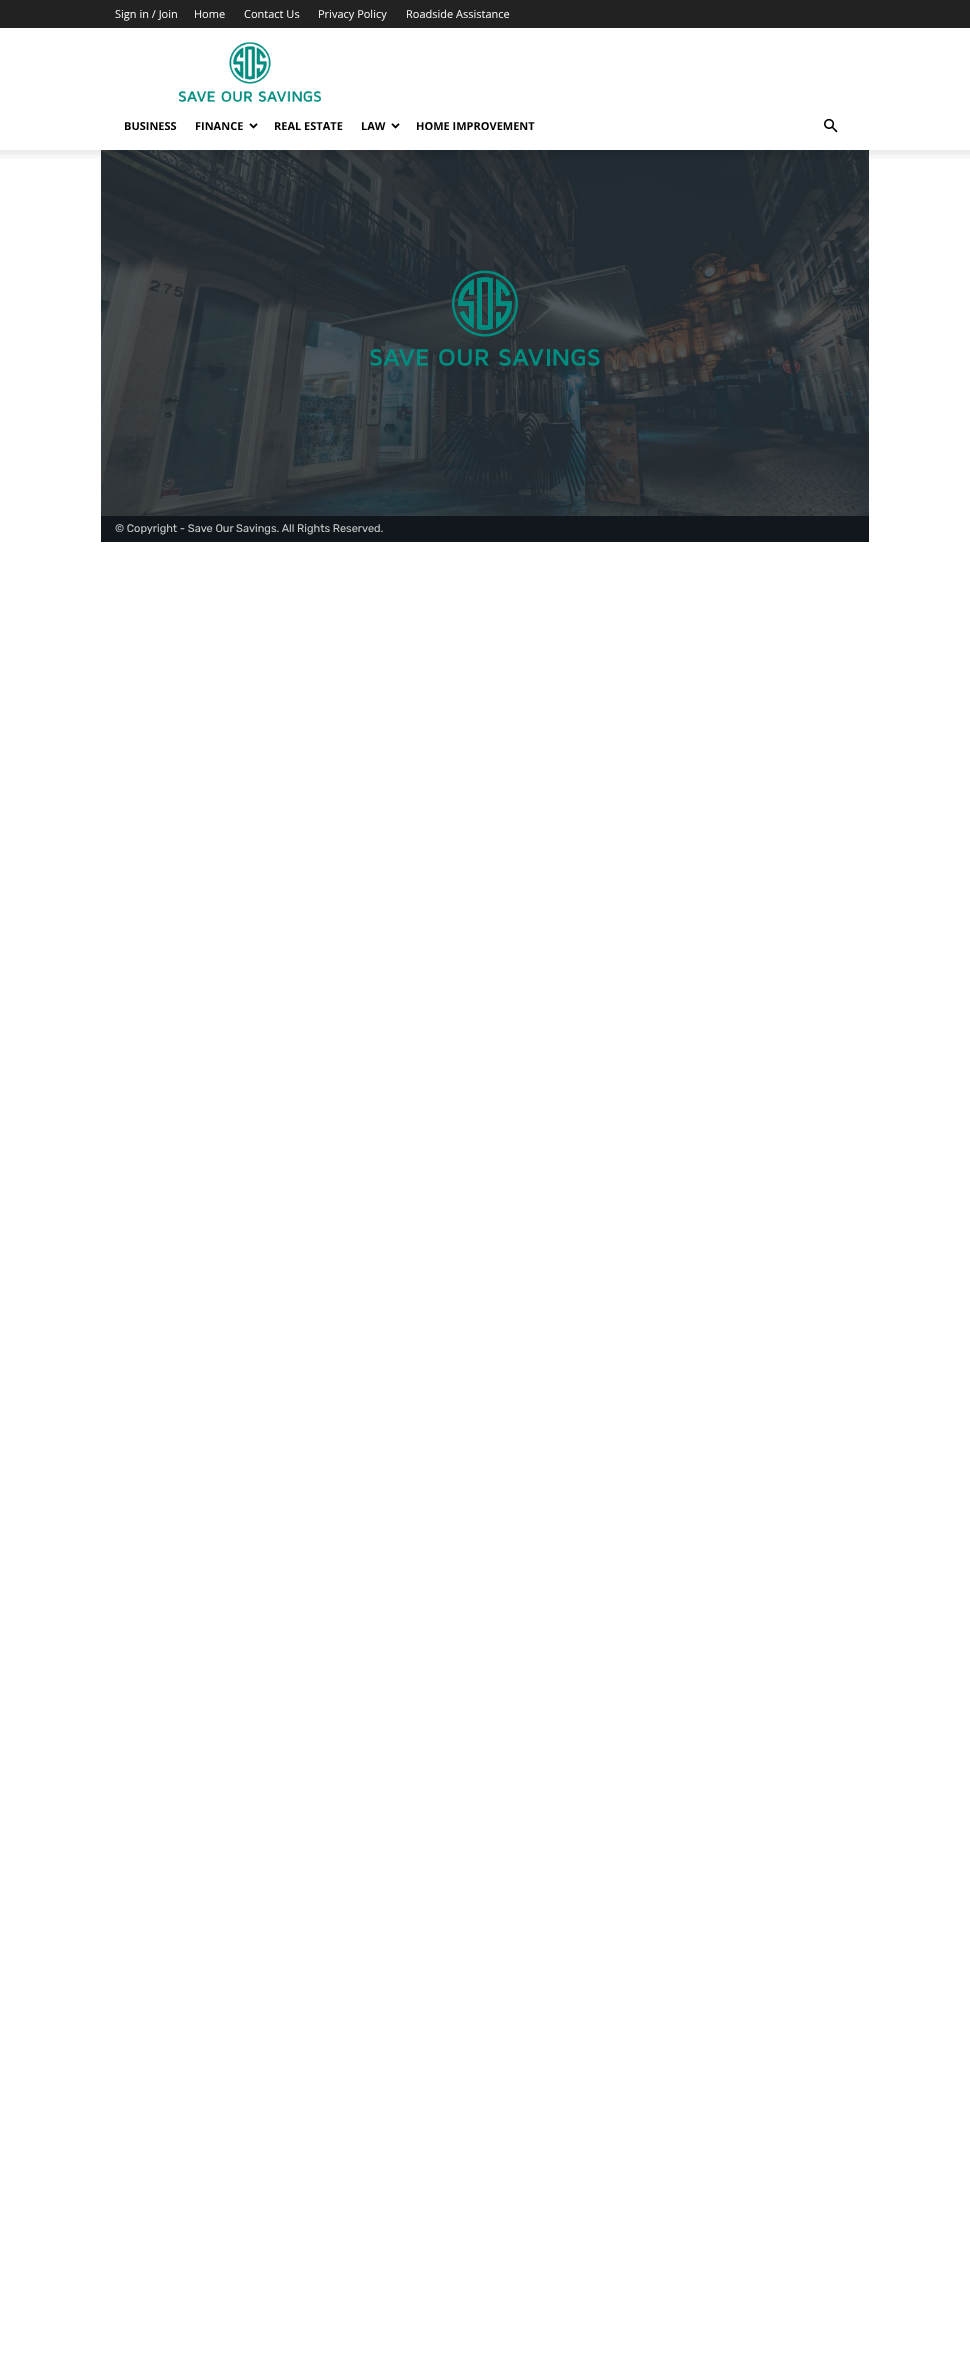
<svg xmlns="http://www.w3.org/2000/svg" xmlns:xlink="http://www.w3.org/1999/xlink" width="970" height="2374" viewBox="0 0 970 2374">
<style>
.cls-1{font:11px Open Sans;fill:#ffffff}
.cls-2{font:bold 11px Open Sans;fill:#000000}
.cls-3{font:300 11px Rubik;fill:#cccccc}
</style>
<rect width="100%" height="100%" fill="#ffffff"/>
<rect fill="#222222" x="0" y="0" width="970" height="28"/>
<image xlink:href="image0.png" x="179" y="42" width="142" height="60"/>
<image xlink:href="image1.png" x="249" y="123" width="9" height="6"/>
<image xlink:href="image1.png" x="391" y="123" width="9" height="6"/>
<image xlink:href="image2.png" x="824" y="118" width="14" height="15"/>
<rect fill="#232d35" x="101" y="150" width="768" height="366"/>
<image xlink:href="image4.png" x="101" y="150" width="768" height="366"/>
<image xlink:href="image3.png" x="0" y="150" width="970" height="9"/>
<image xlink:href="image5.png" x="370" y="270" width="230" height="96"/>
<rect fill="#11171c" x="101" y="516" width="768" height="26"/>
<text class="cls-1" x="115" y="18">Sign in / Join</text>
<text class="cls-1" x="194" y="18">Home</text>
<text class="cls-1" x="244" y="18">Contact Us</text>
<text class="cls-1" x="318" y="18">Privacy Policy</text>
<text class="cls-1" x="406" y="18">Roadside Assistance</text>
<text class="cls-2" x="124" y="130">BUSINESS</text>
<text class="cls-2" x="195" y="130">FINANCE</text>
<text class="cls-2" x="274" y="130">REAL ESTATE</text>
<text class="cls-2" x="361" y="130">LAW</text>
<text class="cls-2" x="416" y="130">HOME IMPROVEMENT</text>
<text class="cls-3" x="115" y="532">© Copyright - Save Our Savings. All Rights Reserved.</text>
</svg>
